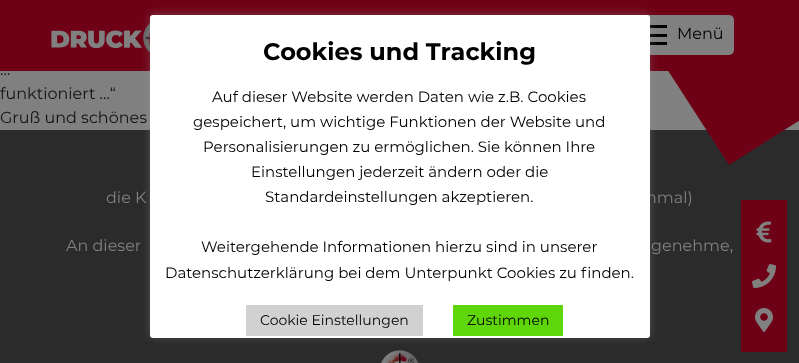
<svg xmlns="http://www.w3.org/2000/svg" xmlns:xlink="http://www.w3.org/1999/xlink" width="799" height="363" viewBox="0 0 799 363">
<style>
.cls-1{font:16px Montserrat;fill:#000000}
.cls-2{font:16px Montserrat;fill:#111315}
.cls-3{font:16px Montserrat;fill:#808080}
.cls-4{font:14px Montserrat;fill:#000000}
.cls-5{font:15px Montserrat;fill:#000000}
.cls-6{font:bold 24px Montserrat;fill:#000000}
</style>
<rect width="100%" height="100%" fill="#808080"/>
<rect fill="#6f0116" x="0" y="0" width="669" height="71"/>
<image xlink:href="image0.png" x="51" y="23" width="99" height="30"/>
<rect fill="#2b2b2b" x="0" y="130" width="799" height="233"/>
<path fill="#6f0116" d="M729 165L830 101V-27H605Z"/>
<rect fill="#808080" x="637" y="15" width="97" height="40" rx="5"/>
<rect fill="#000000" x="647" y="25" width="20" height="3"/>
<rect fill="#000000" x="647" y="42" width="20" height="3"/>
<rect fill="#000000" x="647" y="34" width="20" height="3"/>
<image xlink:href="image1.png" x="381" y="350" width="38" height="13"/>
<rect fill="#acabab" fill-opacity="0.3" filter="blur(5px)" x="150" y="14" width="500" height="323" rx="3"/>
<rect fill="#6f0116" x="741" y="200" width="46" height="152"/>
<image xlink:href="image2.png" x="756" y="221" width="16" height="22"/>
<image xlink:href="image3.png" x="752" y="264" width="24" height="24"/>
<image xlink:href="image4.png" x="755" y="308" width="18" height="24"/>
<text class="cls-1" x="677" y="39">Menü</text>
<text class="cls-2"><tspan x="0" y="75">…</tspan><tspan x="0" y="99">funktioniert …“</tspan><tspan x="0" y="123">Gruß und schönes</tspan></text>
<text class="cls-3" x="106" y="203">die K</text>
<text class="cls-3" x="646" y="203">nmal)</text>
<rect fill="#ffffff" x="150" y="15" width="500" height="323" rx="3"/>
<rect fill="#5fd60a" x="453" y="305" width="110" height="31"/>
<text class="cls-4" x="467" y="325">Zustimmen</text>
<rect fill="#d1d1d1" x="246" y="305" width="177" height="31"/>
<text class="cls-4" x="260" y="325">Cookie Einstellungen</text>
<text class="cls-5" x="165" y="278">Datenschutzerklärung bei dem Unterpunkt Cookies zu finden.</text>
<text class="cls-5" x="201" y="252">Weitergehende Informationen hierzu sind in unserer</text>
<text class="cls-5" x="265" y="202">Standardeinstellungen akzeptieren.</text>
<text class="cls-5" x="251" y="177">Einstellungen jederzeit ändern oder die</text>
<text class="cls-5" x="203" y="152">Personalisierungen zu ermöglichen. Sie können Ihre</text>
<text class="cls-5" x="193" y="127">gespeichert, um wichtige Funktionen der Website und</text>
<text class="cls-5" x="212" y="102">Auf dieser Website werden Daten wie z.B. Cookies</text>
<text class="cls-6" x="263" y="60">Cookies und Tracking</text>
<text class="cls-3" x="66" y="251">An dieser</text>
<text class="cls-3" x="651" y="251">genehme,</text>
</svg>
